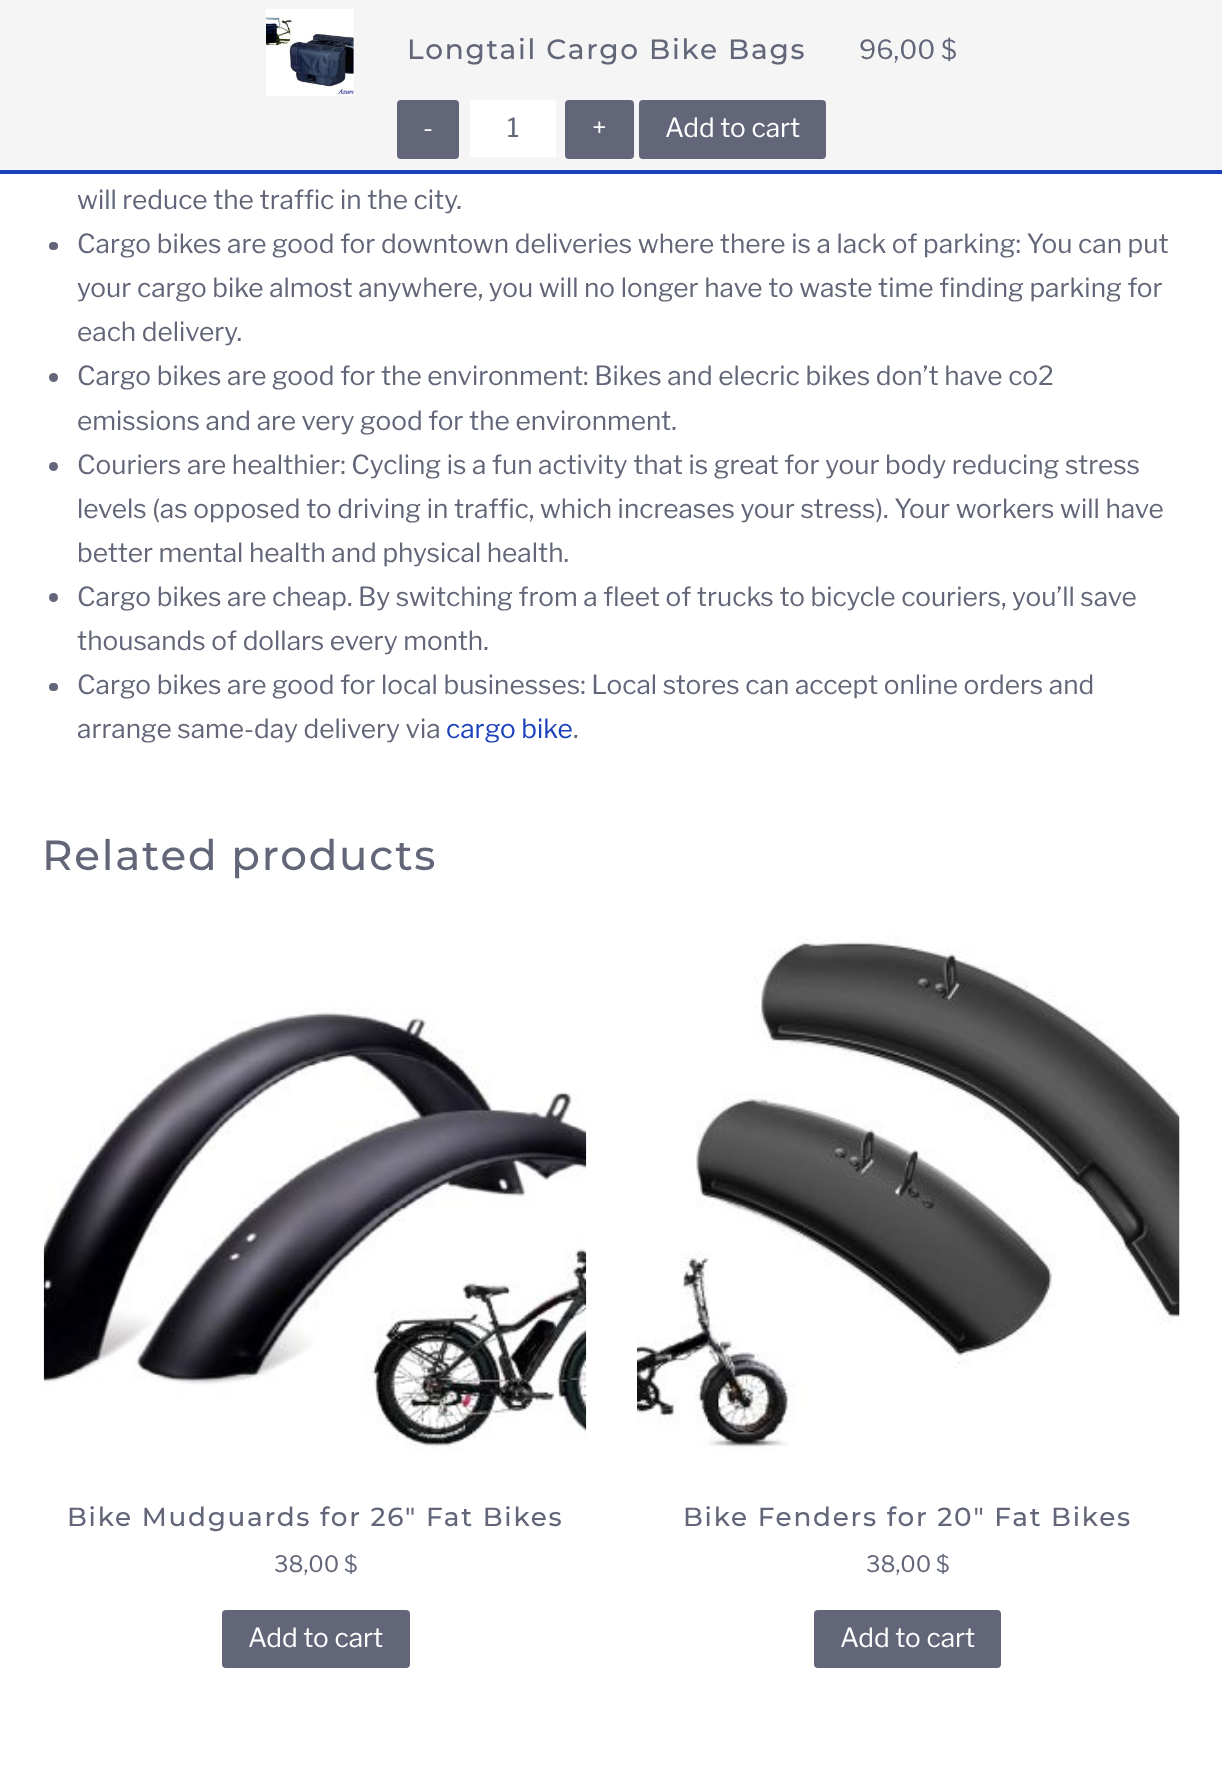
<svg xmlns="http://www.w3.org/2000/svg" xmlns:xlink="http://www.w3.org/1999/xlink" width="1222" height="1774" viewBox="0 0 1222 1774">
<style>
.cls-1{font:500 28px Montserrat;letter-spacing:1.75px;fill:#626678}
.cls-2{font:26.25px Libre Franklin;fill:#626678}
.cls-3{font:26.25px Libre Franklin;fill:#ffffff}
.cls-4{font:26.25px Libre Franklin;fill:#1c41bc}
.cls-5{font:500 42px Montserrat;letter-spacing:1.75px;fill:#626678}
.cls-6{font:500 26.25px Montserrat;letter-spacing:1.75px;fill:#626678}
.cls-7{font:22.5px Libre Franklin;fill:#626678}
</style>
<rect width="100%" height="100%" fill="#ffffff"/>
<rect fill="#f5f5f5" x="0" y="0" width="1222" height="170"/>
<rect fill="#1c41bc" x="0" y="170" width="1222" height="4"/>
<image xlink:href="image0.png" x="266" y="9" width="88" height="87"/>
<rect fill="#626678" x="397" y="100" width="62" height="59" rx="4"/>
<rect fill="#ffffff" stroke="#f5f5f5" stroke-width="4" x="468" y="98" width="90" height="61" rx="2"/>
<rect fill="#626678" x="565" y="100" width="69" height="59" rx="4"/>
<rect fill="#626678" x="639" y="100" width="187" height="59" rx="4"/>
<rect fill="#626678" x="49" y="242" width="9" height="8" rx="4"/>
<circle fill="#626678" cx="53.5" cy="377.5" r="4.5"/>
<circle fill="#626678" cx="53.5" cy="466.5" r="4.5"/>
<circle fill="#626678" cx="53.5" cy="597.5" r="4.5"/>
<rect fill="#626678" x="49" y="683" width="9" height="8" rx="4"/>
<image xlink:href="image1.png" x="43" y="1006" width="544" height="446"/>
<rect fill="#626678" x="222" y="1610" width="188" height="58" rx="4"/>
<image xlink:href="image2.png" x="637" y="935" width="543" height="517"/>
<rect fill="#626678" x="814" y="1610" width="187" height="58" rx="4"/>
<text class="cls-1" x="407" y="59">Longtail Cargo Bike Bags</text>
<text class="cls-2" x="859" y="59">96,00 $</text>
<text class="cls-3" x="423" y="137">-</text>
<text class="cls-2" x="507" y="137">1</text>
<text class="cls-3" x="592" y="137">+</text>
<text class="cls-3" x="665" y="137">Add to cart</text>
<text class="cls-2"><tspan x="77" y="209">will reduce the traffic in the city.</tspan><tspan x="77" y="253">Cargo bikes are good for downtown deliveries where there is a lack of parking: You can put</tspan><tspan x="77" y="297">your cargo bike almost anywhere, you will no longer have to waste time finding parking for</tspan><tspan x="77" y="341">each delivery.</tspan><tspan x="77" y="385">Cargo bikes are good for the environment: Bikes and elecric bikes don’t have co2</tspan><tspan x="77" y="430">emissions and are very good for the environment.</tspan><tspan x="77" y="474">Couriers are healthier: Cycling is a fun activity that is great for your body reducing stress</tspan><tspan x="77" y="518">levels (as opposed to driving in traffic, which increases your stress). Your workers will have</tspan><tspan x="77" y="562">better mental health and physical health.</tspan><tspan x="77" y="606">Cargo bikes are cheap. By switching from a fleet of trucks to bicycle couriers, you’ll save</tspan><tspan x="77" y="650">thousands of dollars every month.</tspan><tspan x="77" y="694">Cargo bikes are good for local businesses: Local stores can accept online orders and</tspan><tspan x="77" y="738">arrange same-day delivery via</tspan></text>
<text class="cls-4" x="446" y="738">cargo bike</text>
<text class="cls-2" x="573" y="738">.</text>
<text class="cls-5" x="42" y="870">Related products</text>
<text class="cls-6" x="67" y="1526">Bike Mudguards for 26″ Fat Bikes</text>
<text class="cls-7" x="274" y="1572">38,00 $</text>
<text class="cls-3" x="248" y="1647">Add to cart</text>
<text class="cls-6" x="683" y="1526">Bike Fenders for 20″ Fat Bikes</text>
<text class="cls-7" x="866" y="1572">38,00 $</text>
<text class="cls-3" x="840" y="1647">Add to cart</text>
</svg>
